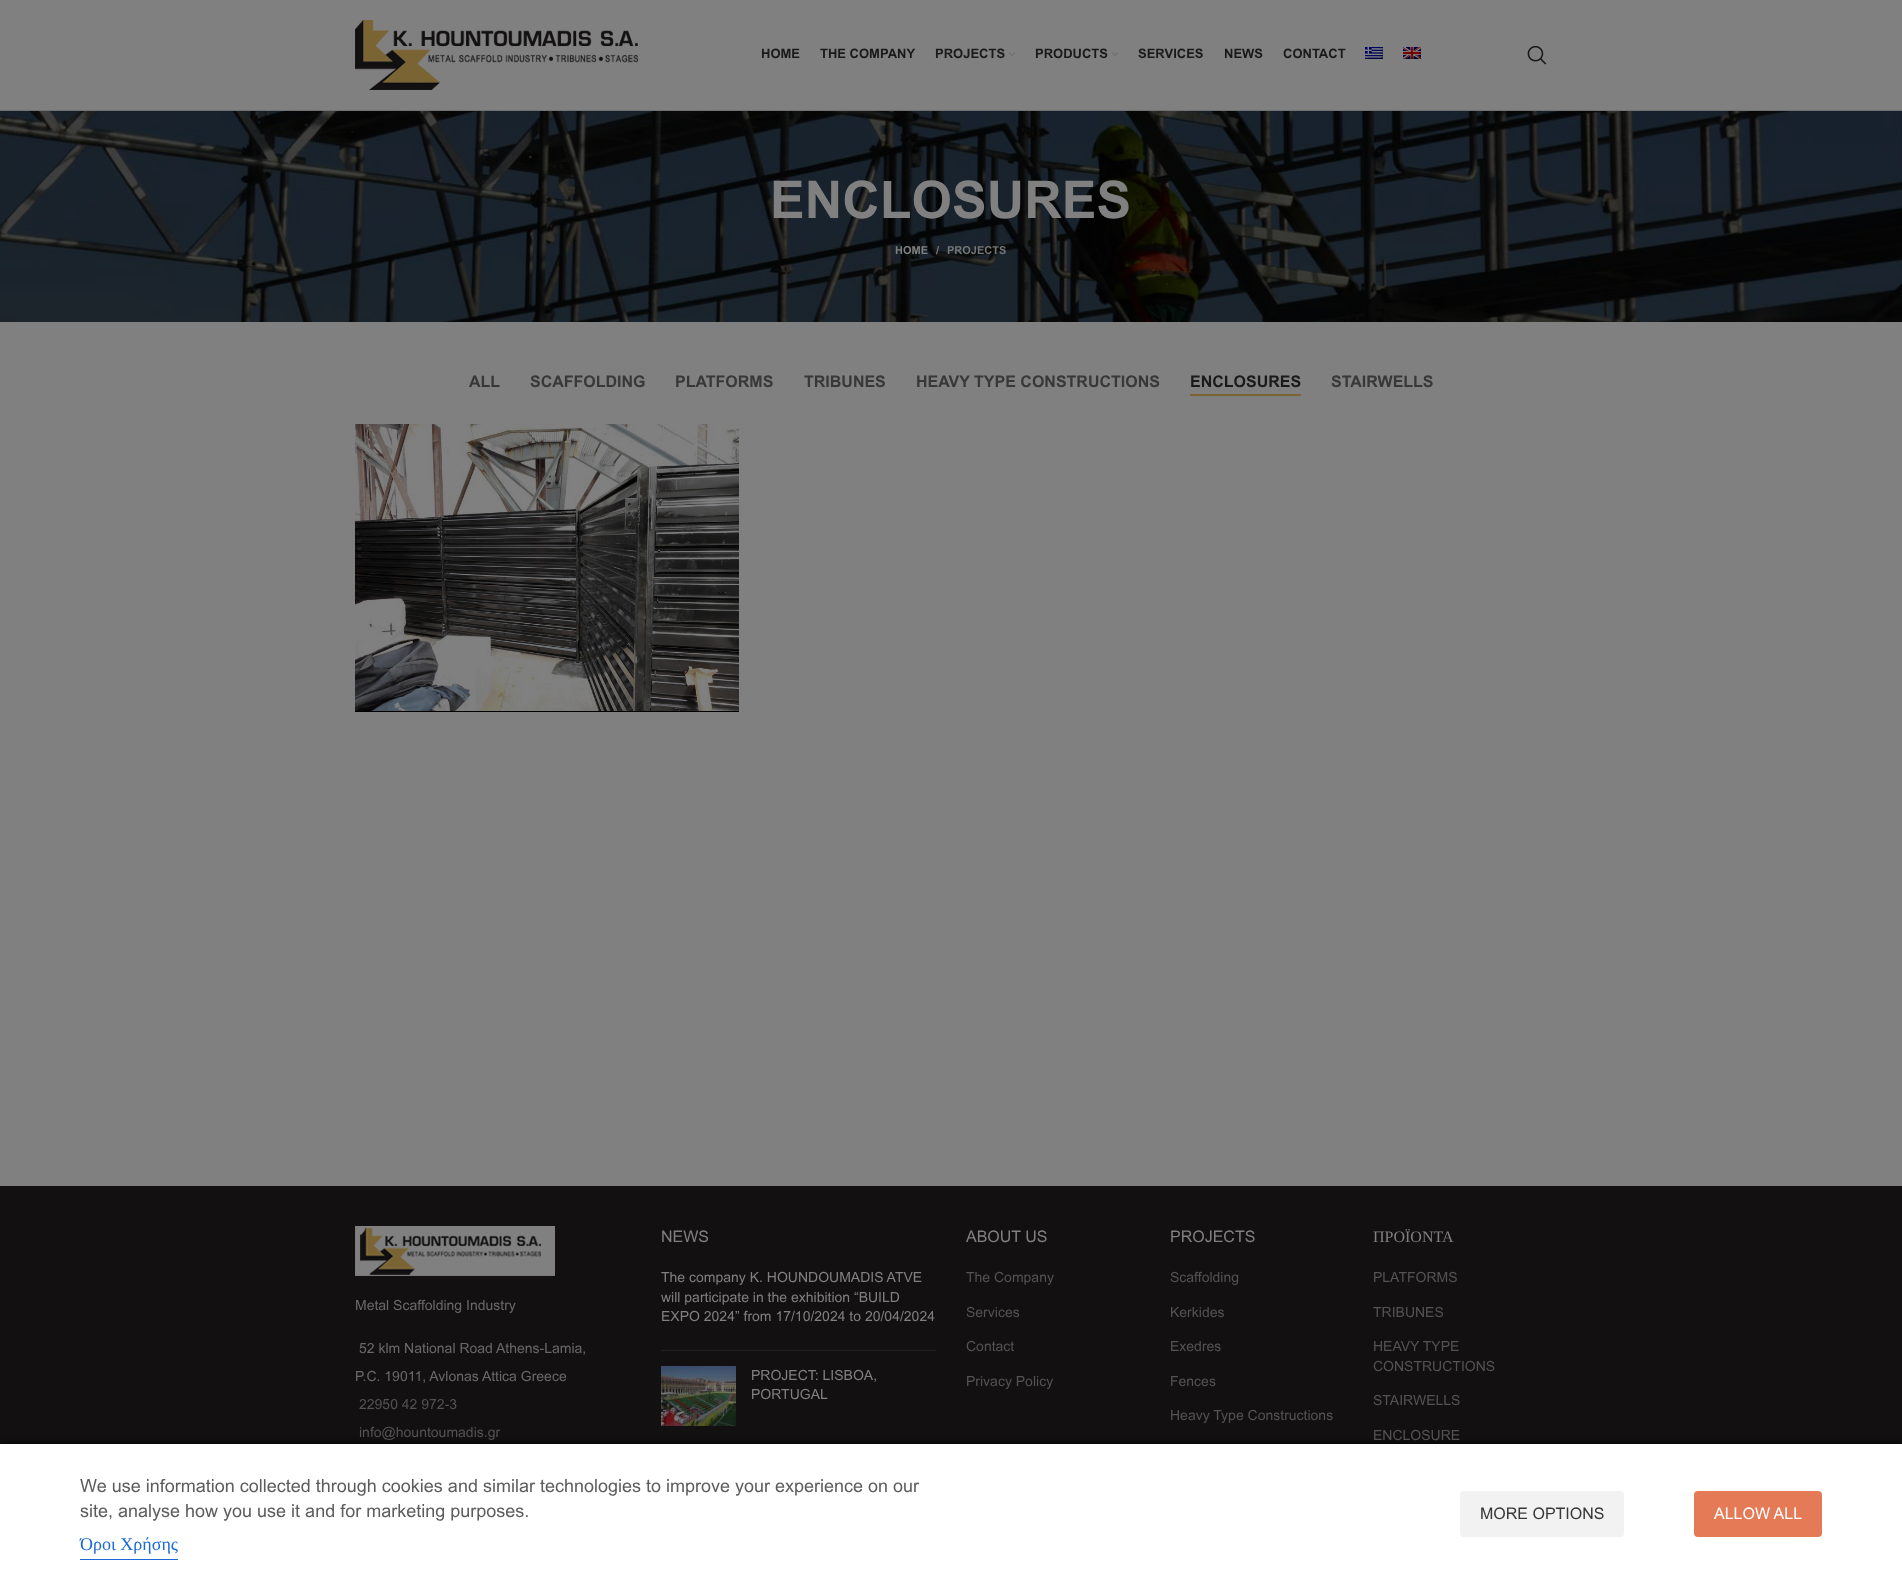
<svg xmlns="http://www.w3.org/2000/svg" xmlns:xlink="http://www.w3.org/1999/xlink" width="1902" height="1578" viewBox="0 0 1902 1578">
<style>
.cls-1{font:bold 13px Arial;fill:#1a1a1a}
.cls-2{font:bold 52px Arial;fill:#808080}
.cls-3{font:bold 11px Arial;fill:#808080}
.cls-4{font:bold 11px Arial;fill:#757576}
.cls-5{font:bold 16px Arial;fill:#383838}
.cls-6{font:bold 16px Arial;fill:#1a1a1a}
.cls-7{font:14px Arial;fill:#6a6969}
.cls-8{font:14px Arial;fill:#545353}
.cls-9{font:16px Arial;fill:#808080}
.cls-10{font:14px Arial;fill:#808080}
.cls-11{font:16px Liberation Serif;fill:#808080}
.cls-12{font:18px Arial;fill:#5d5d5d}
.cls-13{font:18px Liberation Serif;fill:#1a6bd7}
.cls-14{font:16px Arial;fill:#383838}
.cls-15{font:16px Arial;fill:#ffffff}
</style>
<rect width="100%" height="100%" fill="#808080"/>
<rect fill="#717171" x="0" y="110" width="1902" height="1"/>
<image xlink:href="image0.png" x="355" y="20" width="283" height="70"/>
<image xlink:href="image1.png" x="1009" y="52" width="6" height="4"/>
<image xlink:href="image1.png" x="1112" y="52" width="6" height="4"/>
<image xlink:href="image2.png" x="1365" y="47" width="18" height="12"/>
<image xlink:href="image3.png" x="1403" y="47" width="18" height="12"/>
<image xlink:href="image4.png" x="1527" y="45" width="20" height="20"/>
<image xlink:href="image5.png" x="0" y="111" width="1902" height="211"/>
<rect fill="#7a6434" x="1190" y="394" width="111" height="2"/>
<image xlink:href="image6.png" x="355" y="424" width="384" height="287"/>
<rect fill="#000000" x="355" y="711" width="384" height="1"/>
<rect fill="#121010" x="0" y="1186" width="1902" height="258"/>
<image xlink:href="image7.png" x="355" y="1226" width="200" height="50"/>
<rect fill="#222121" x="661" y="1350" width="275" height="1"/>
<image xlink:href="image8.png" x="661" y="1366" width="75" height="60"/>
<rect fill="#000000" fill-opacity="0.5" filter="blur(2.5px)" x="0" y="1442" width="1902" height="134"/>
<rect fill="#ffffff" x="0" y="1444" width="1902" height="134"/>
<rect fill="#1a6bd7" x="80" y="1559" width="98" height="1"/>
<rect fill="#f2f2f2" x="1460" y="1491" width="164" height="46" rx="4"/>
<rect fill="#e47a56" x="1694" y="1491" width="128" height="46" rx="4"/>
<text class="cls-1" x="761" y="58">HOME</text>
<text class="cls-1" x="820" y="58">THE COMPANY</text>
<text class="cls-1" x="935" y="58">PROJECTS</text>
<text class="cls-1" x="1035" y="58">PRODUCTS</text>
<text class="cls-1" x="1138" y="58">SERVICES</text>
<text class="cls-1" x="1224" y="58">NEWS</text>
<text class="cls-1" x="1283" y="58">CONTACT</text>
<text class="cls-2" x="770" y="218">ENCLOSURES</text>
<text class="cls-3" x="895" y="254">HOME</text>
<text class="cls-3" x="936" y="254">/</text>
<text class="cls-4" x="947" y="254">PROJECTS</text>
<text class="cls-5" x="469" y="387">ALL</text>
<text class="cls-5" x="530" y="387">SCAFFOLDING</text>
<text class="cls-5" x="675" y="387">PLATFORMS</text>
<text class="cls-5" x="804" y="387">TRIBUNES</text>
<text class="cls-5" x="916" y="387">HEAVY TYPE CONSTRUCTIONS</text>
<text class="cls-6" x="1190" y="387">ENCLOSURES</text>
<text class="cls-5" x="1331" y="387">STAIRWELLS</text>
<text class="cls-7" x="355" y="1310">Metal Scaffolding Industry</text>
<text class="cls-7" x="359" y="1353">52 klm National Road Athens-Lamia,</text>
<text class="cls-7" x="355" y="1381">P.C. 19011, Avlonas Attica Greece</text>
<text class="cls-8" x="359" y="1409">22950 42 972-3</text>
<text class="cls-8" x="359" y="1437">info@hountoumadis.gr</text>
<text class="cls-9" x="661" y="1242">NEWS</text>
<text class="cls-10"><tspan x="661" y="1282">The company K. HOUNDOUMADIS ATVE</tspan><tspan x="661" y="1302">will participate in the exhibition “BUILD</tspan><tspan x="661" y="1321">EXPO 2024” from 17/10/2024 to 20/04/2024</tspan></text>
<text class="cls-10"><tspan x="751" y="1380">PROJECT: LISBOA,</tspan><tspan x="751" y="1399">PORTUGAL</tspan></text>
<text class="cls-9" x="966" y="1242">ABOUT US</text>
<text class="cls-8" x="966" y="1282">The Company</text>
<text class="cls-8" x="966" y="1317">Services</text>
<text class="cls-8" x="966" y="1351">Contact</text>
<text class="cls-8" x="966" y="1386">Privacy Policy</text>
<text class="cls-9" x="1170" y="1242">PROJECTS</text>
<text class="cls-8" x="1170" y="1282">Scaffolding</text>
<text class="cls-8" x="1170" y="1317">Kerkides</text>
<text class="cls-8" x="1170" y="1351">Exedres</text>
<text class="cls-8" x="1170" y="1386">Fences</text>
<text class="cls-8" x="1170" y="1420">Heavy Type Constructions</text>
<text class="cls-11" x="1373" y="1242">ΠΡΟΪΟΝΤΑ</text>
<text class="cls-8" x="1373" y="1282">PLATFORMS</text>
<text class="cls-8" x="1373" y="1317">TRIBUNES</text>
<text class="cls-8"><tspan x="1373" y="1351">HEAVY TYPE</tspan><tspan x="1373" y="1371">CONSTRUCTIONS</tspan></text>
<text class="cls-8" x="1373" y="1405">STAIRWELLS</text>
<text class="cls-8" x="1373" y="1440">ENCLOSURE</text>
<text class="cls-12"><tspan x="80" y="1492">We use information collected through cookies and similar technologies to improve your experience on our</tspan><tspan x="80" y="1517">site, analyse how you use it and for marketing purposes.</tspan></text>
<text class="cls-13" x="80" y="1550">Όροι Χρήσης</text>
<text class="cls-14" x="1480" y="1519">MORE OPTIONS</text>
<text class="cls-15" x="1714" y="1519">ALLOW ALL</text>
</svg>
